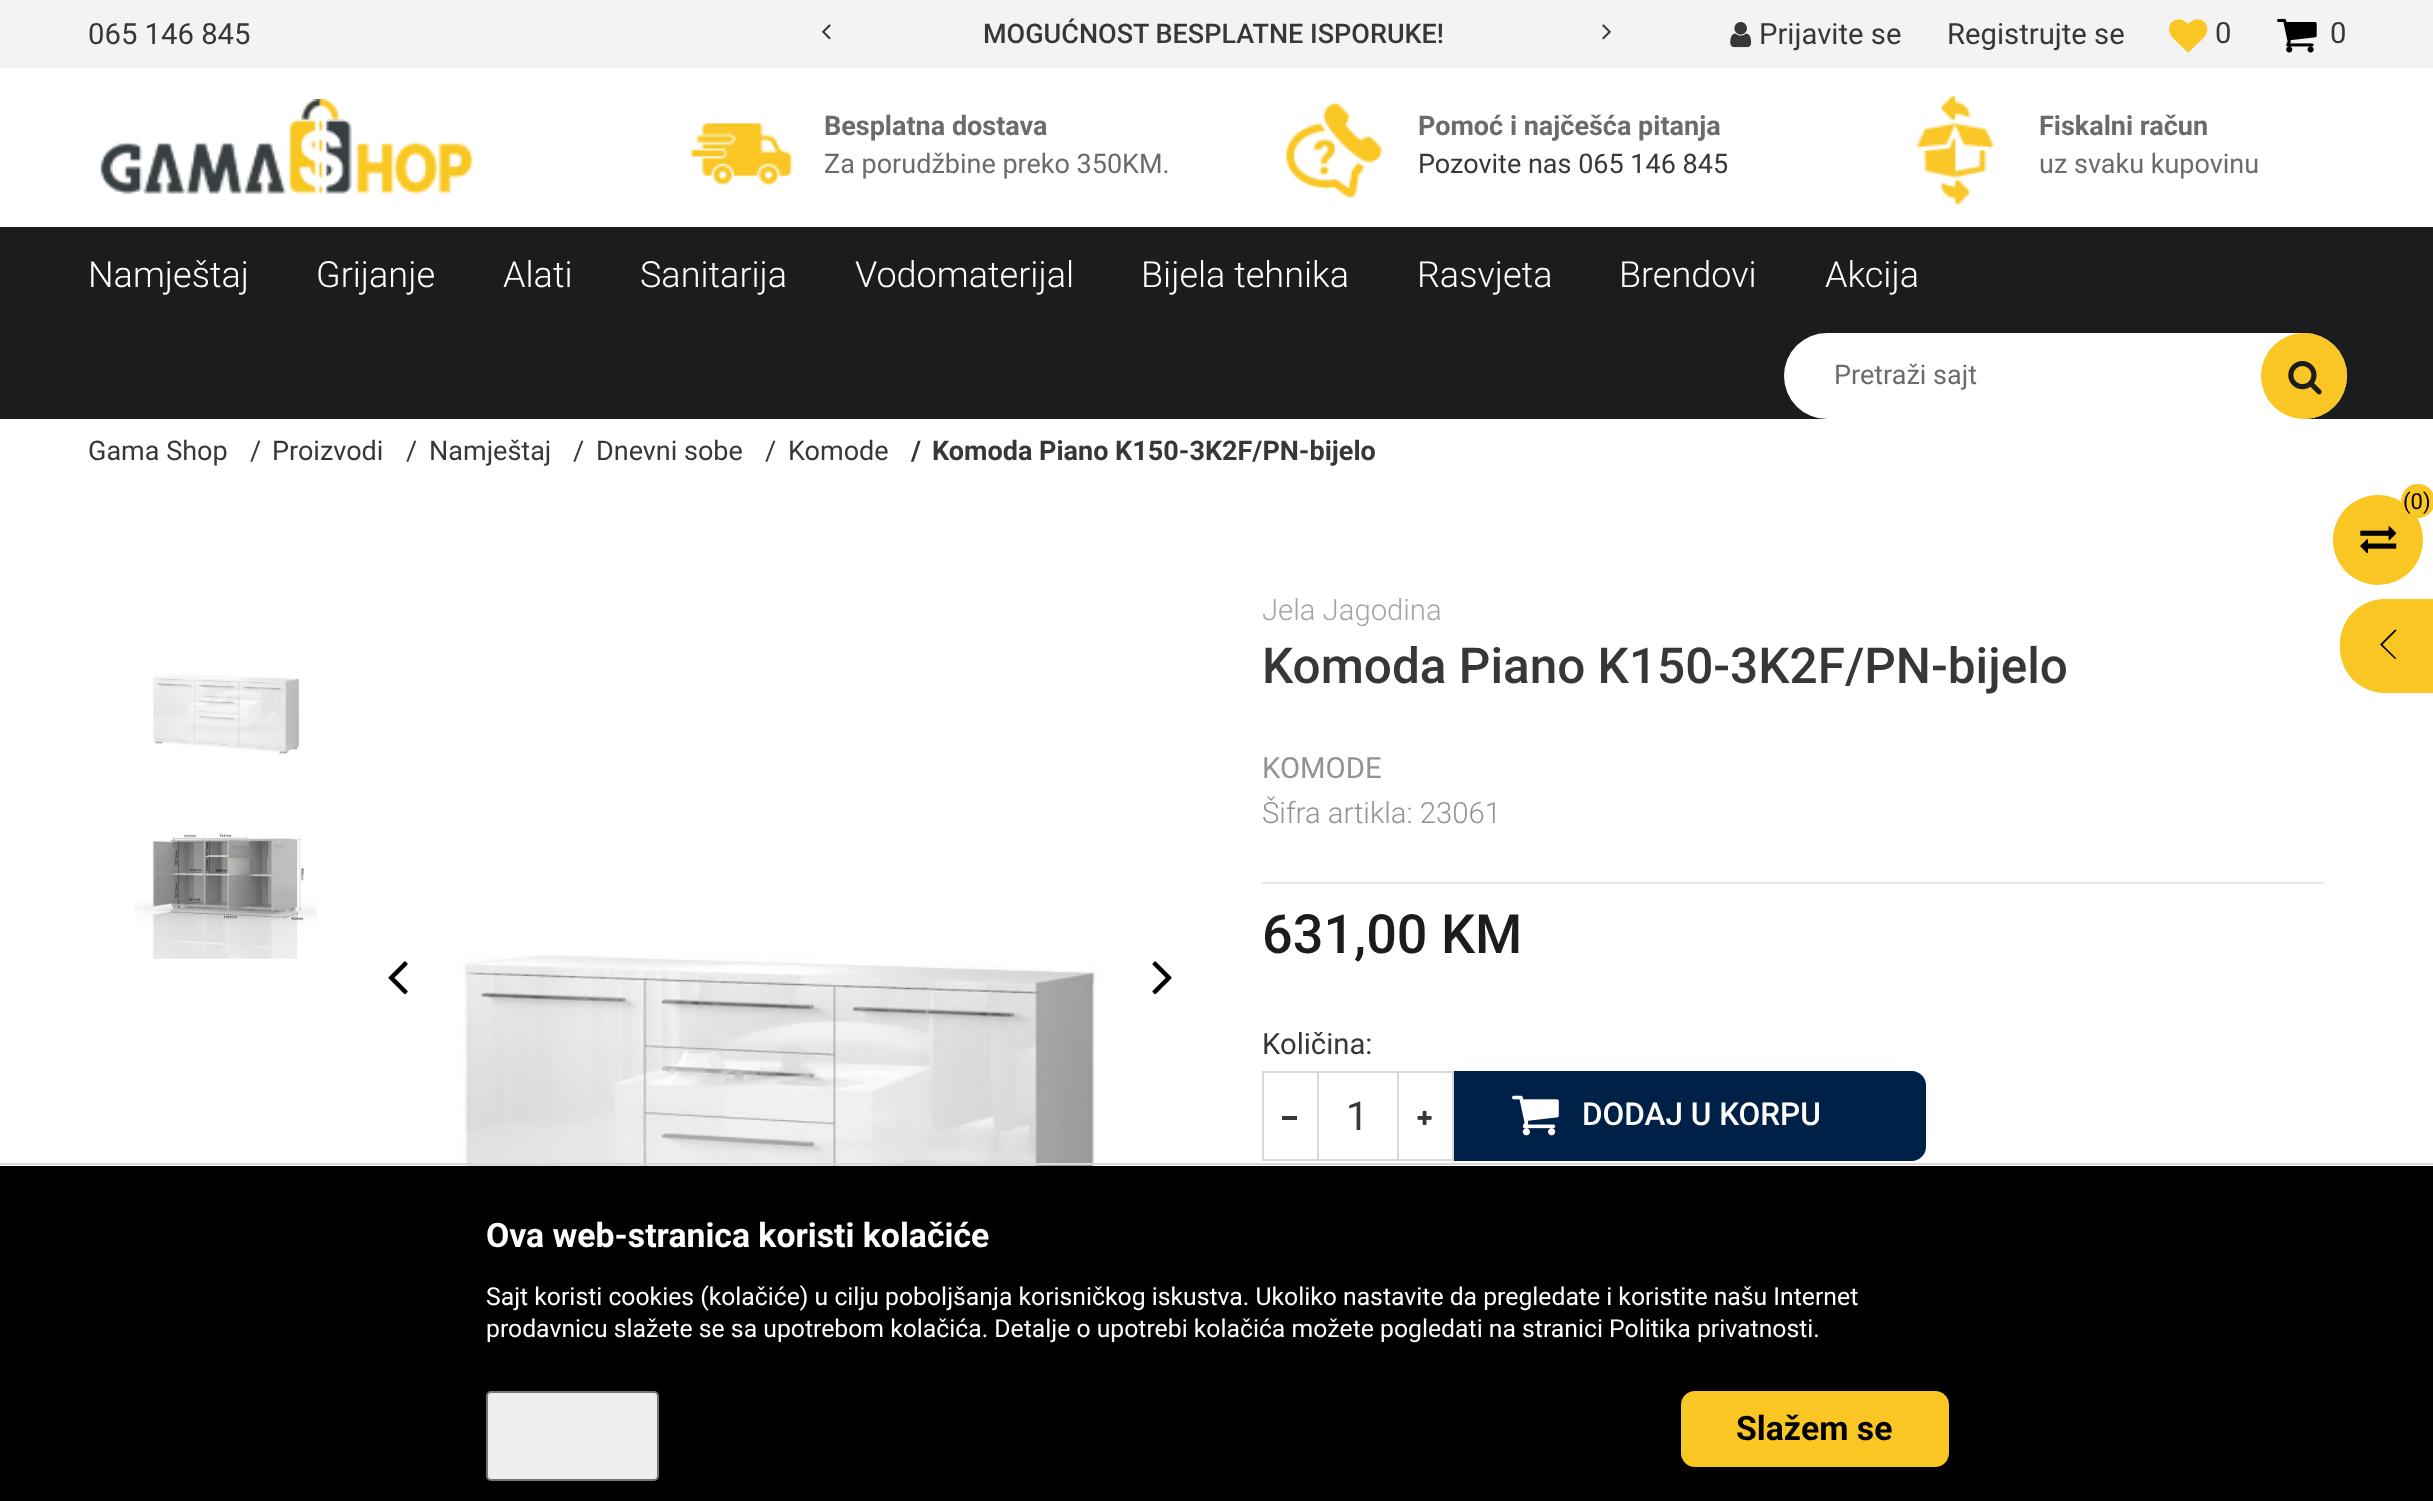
<svg xmlns="http://www.w3.org/2000/svg" xmlns:xlink="http://www.w3.org/1999/xlink" width="2433" height="1501" viewBox="0 0 2433 1501">
<style>
.cls-1{font:29.25px Roboto;fill:#373737}
.cls-2{font:500 27px Roboto;fill:#373737}
.cls-3{font:bold 27px Roboto;fill:#6b6b6b}
.cls-4{font:27px Roboto;fill:#6b6b6b}
.cls-5{font:27px Roboto;fill:#373737}
.cls-6{font:300 36px Roboto;fill:#ffffff}
.cls-7{font:bold 27px Roboto;fill:#373737}
.cls-8{font:22px Roboto;fill:#000000}
.cls-9{font:300 29.25px Roboto;fill:#a5a5a5}
.cls-10{font:500 49.5px Roboto;fill:#373737}
.cls-11{font:29.25px Roboto;fill:#939393}
.cls-12{font:300 29.25px Roboto;fill:#939393}
.cls-13{font:500 54px Roboto;fill:#1c1c1c}
.cls-14{font:40px Roboto;fill:#373737}
.cls-15{font:500 31.5px Roboto;fill:#ffffff}
.cls-16{font:bold 33.75px Roboto;fill:#ffffff}
.cls-17{font:24.75px Roboto;fill:#ffffff}
.cls-18{font:bold 33.75px Roboto;fill:#000000}
</style>
<rect width="100%" height="100%" fill="#ffffff"/>
<rect fill="#f3f3f3" x="0" y="0" width="2433" height="68"/>
<image xlink:href="image0.png" x="822" y="24" width="9" height="16"/>
<image xlink:href="image1.png" x="1602" y="24" width="9" height="16"/>
<image xlink:href="image2.png" x="1730" y="22" width="22" height="26"/>
<image xlink:href="image3.png" x="2169" y="19" width="39" height="34"/>
<image xlink:href="image4.png" x="2277" y="18" width="40" height="35"/>
<image xlink:href="image5.png" x="99" y="99" width="375" height="96"/>
<image xlink:href="image6.png" x="690" y="122" width="103" height="64"/>
<image xlink:href="image7.png" x="1285" y="103" width="98" height="95"/>
<image xlink:href="image8.png" x="1916" y="95" width="79" height="110"/>
<rect fill="#1c1c1c" x="0" y="227" width="2433" height="192"/>
<rect fill="#ffffff" x="1784" y="333" width="563" height="86" rx="43"/>
<circle fill="#f9c624" cx="2304" cy="376" r="43"/>
<image xlink:href="image9.png" x="2288" y="361" width="34" height="34"/>
<circle fill="#f9c624" cx="2378" cy="540" r="45"/>
<circle fill="#f9c624" cx="2418" cy="501" r="17"/>
<image xlink:href="image10.png" x="2360" y="526" width="37" height="28"/>
<image xlink:href="image11.png" x="153" y="674" width="147" height="81"/>
<image xlink:href="image12.png" x="135" y="833" width="182" height="126"/>
<image xlink:href="image13.png" x="462" y="954" width="637" height="212"/>
<image xlink:href="image14.png" x="388" y="961" width="20" height="34"/>
<image xlink:href="image15.png" x="1152" y="961" width="20" height="34"/>
<rect fill="#e8e8e8" x="1262" y="882" width="1062" height="2"/>
<rect fill="none" stroke="#d9d9d9" stroke-width="2" x="1263" y="1072" width="55" height="88"/>
<rect fill="#373737" x="1282" y="1116" width="15" height="4"/>
<rect fill="#d9d9d9" x="1319" y="1071" width="78" height="2"/>
<rect fill="#d9d9d9" x="1319" y="1159" width="78" height="2"/>
<rect fill="none" stroke="#d9d9d9" stroke-width="2" x="1398" y="1072" width="55" height="88"/>
<image xlink:href="image16.png" x="1417" y="1110" width="15" height="15"/>
<path fill="#002147" d="M1454 1071H1912C1919.5 1071 1926 1077.5 1926 1085V1147C1926 1154.5 1919.5 1161 1912 1161H1454Z"/>
<image xlink:href="image17.png" x="1512" y="1095" width="47" height="41"/>
<path fill="#f9c624" d="M2385 599H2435V693H2385C2360 693 2340 673 2340 648V644C2340 619 2360 599 2385 599Z"/>
<path fill="#000000" d="M2380 644.5L2395 659V658.5L2396 659L2396.5 658.5L2382.5 644.5L2396.5 630.5L2396 629.5L2395.5 630L2395 629.5Z"/>
<rect fill="none" stroke="#d9d9d9" stroke-width="2" x="-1" y="1164" width="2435" height="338"/>
<rect fill="#000000" x="0" y="1166" width="2433" height="335"/>
<rect fill="#efefef" stroke="#767676" stroke-width="2" x="487" y="1392" width="171" height="88" rx="4"/>
<rect fill="#f9c624" x="1681" y="1391" width="268" height="76" rx="14"/>
<text class="cls-1" x="88" y="44">065 146 845</text>
<text class="cls-2" x="983" y="43">MOGUĆNOST BESPLATNE ISPORUKE!</text>
<text class="cls-1" x="1759" y="44">Prijavite se</text>
<text class="cls-1" x="1947" y="44">Registrujte se</text>
<text class="cls-1" x="2215" y="43">0</text>
<text class="cls-1" x="2330" y="43">0</text>
<text class="cls-3" x="824" y="135">Besplatna dostava</text>
<text class="cls-4" x="824" y="173">Za porudžbine preko 350KM.</text>
<text class="cls-3" x="1418" y="135">Pomoć i najčešća pitanja</text>
<text class="cls-5" x="1418" y="173">Pozovite nas 065 146 845</text>
<text class="cls-3" x="2039" y="135">Fiskalni račun</text>
<text class="cls-4" x="2039" y="173">uz svaku kupovinu</text>
<text class="cls-6" x="88" y="287">Namještaj</text>
<text class="cls-6" x="316" y="287">Grijanje</text>
<text class="cls-6" x="503" y="287">Alati</text>
<text class="cls-6" x="640" y="287">Sanitarija</text>
<text class="cls-6" x="855" y="287">Vodomaterijal</text>
<text class="cls-6" x="1141" y="287">Bijela tehnika</text>
<text class="cls-6" x="1417" y="287">Rasvjeta</text>
<text class="cls-6" x="1619" y="287">Brendovi</text>
<text class="cls-6" x="1825" y="287">Akcija</text>
<text class="cls-4" x="1834" y="384">Pretraži sajt</text>
<text class="cls-5" x="88" y="460">Gama Shop</text>
<text class="cls-5" x="250" y="460">/</text>
<text class="cls-5" x="272" y="460">Proizvodi</text>
<text class="cls-5" x="406" y="460">/</text>
<text class="cls-5" x="429" y="460">Namještaj</text>
<text class="cls-5" x="573" y="460">/</text>
<text class="cls-5" x="596" y="460">Dnevni sobe</text>
<text class="cls-5" x="765" y="460">/</text>
<text class="cls-5" x="788" y="460">Komode</text>
<text class="cls-7" x="911" y="460">/</text>
<text class="cls-7" x="932" y="460">Komoda Piano K150-3K2F/PN-bijelo</text>
<text class="cls-8" x="2403" y="509">(0)</text>
<text class="cls-9" x="1262" y="620">Jela Jagodina</text>
<text class="cls-10" x="1262" y="683">Komoda Piano K150-3K2F/PN-bijelo</text>
<text class="cls-11" x="1262" y="778">KOMODE</text>
<text class="cls-12" x="1262" y="823">Šifra artikla: 23061</text>
<text class="cls-13" x="1262" y="953">631,00 KM</text>
<text class="cls-1" x="1262" y="1054">Količina:</text>
<text class="cls-14" x="1346" y="1130">1</text>
<text class="cls-15" x="1582" y="1125">DODAJ U KORPU</text>
<text class="cls-16" x="486" y="1247">Ova web-stranica koristi kolačiće</text>
<text class="cls-17"><tspan x="486" y="1305">Sajt koristi cookies (kolačiće) u cilju poboljšanja korisničkog iskustva. Ukoliko nastavite da pregledate i koristite našu Internet</tspan><tspan x="486" y="1337">prodavnicu slažete se sa upotrebom kolačića. Detalje o upotrebi kolačića možete pogledati na stranici Politika privatnosti.</tspan></text>
<text class="cls-18" x="1736" y="1440">Slažem se</text>
</svg>
